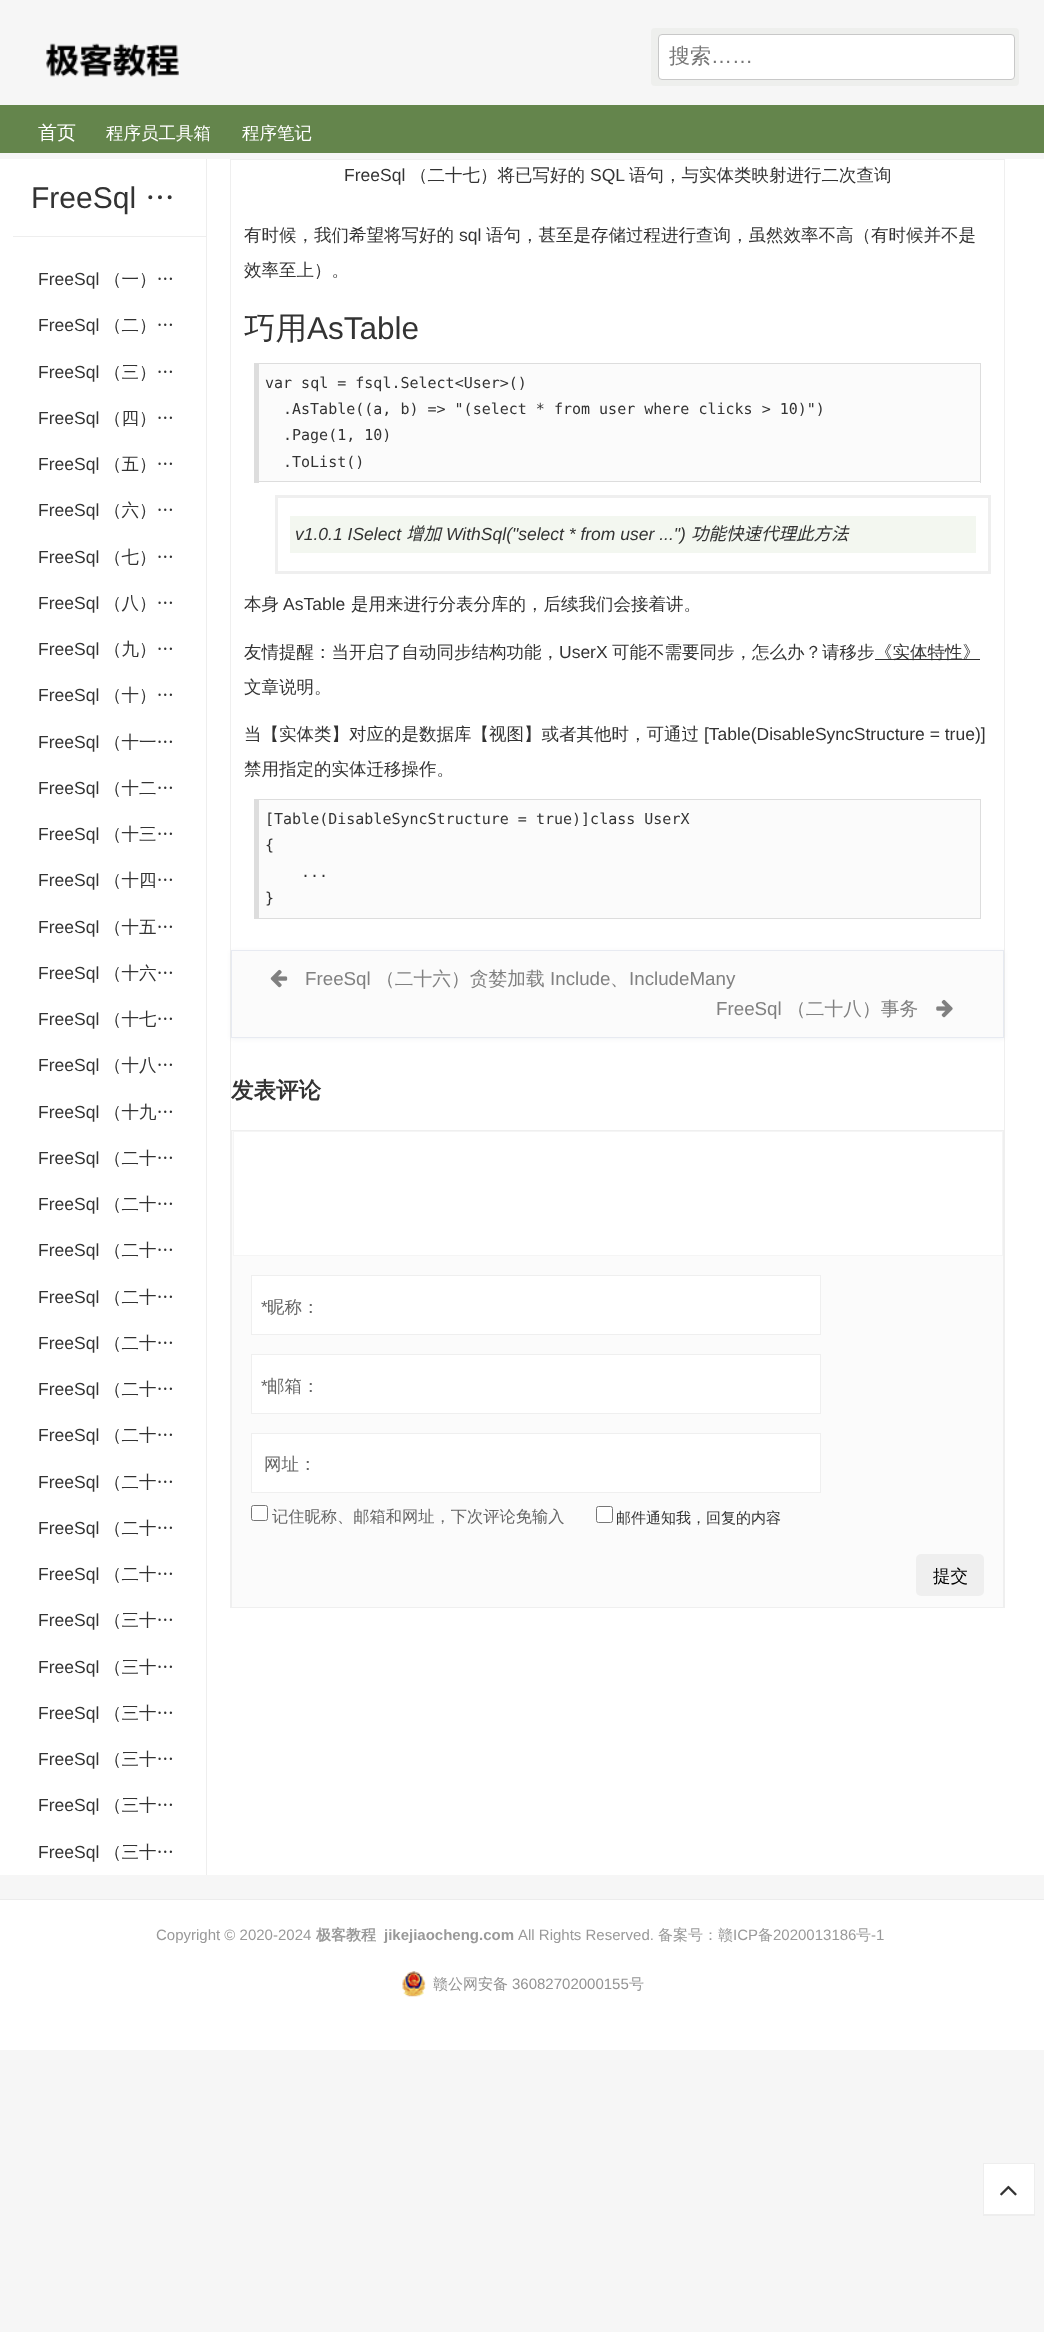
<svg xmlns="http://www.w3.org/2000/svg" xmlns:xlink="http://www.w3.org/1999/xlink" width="1044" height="2332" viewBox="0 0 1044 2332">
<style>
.cls-1{font:500 21px WenQuanYi Zen Hei;fill:#757575}
.cls-2{font:21px Liberation Sans;fill:#757575}
.cls-3{font:500 19px WenQuanYi Zen Hei;fill:#ffffff}
.cls-4{font:500 17.5px WenQuanYi Zen Hei;fill:#ffffff}
.cls-5{font:30px Liberation Sans;fill:#333333}
.cls-6{font:500 30px WenQuanYi Zen Hei;fill:#333333}
.cls-7{font:17.5px Liberation Sans;fill:#333333}
.cls-8{font:500 17.5px WenQuanYi Zen Hei;fill:#333333}
.cls-9{font:500 31.5px WenQuanYi Zen Hei;fill:#333333}
.cls-10{font:31.5px Liberation Sans;fill:#333333}
.cls-11{font:15px DejaVu Sans Mono;fill:#333333}
.cls-12{font:italic 17.5px Liberation Sans;fill:#333333}
.cls-13{font:italic 17.5px Noto Sans CJK SC;fill:#333333}
.cls-14{font:18.75px Liberation Sans;fill:#808080}
.cls-15{font:500 18.75px WenQuanYi Zen Hei;fill:#808080}
.cls-16{font:bold 22.5px WenQuanYi Zen Hei;fill:#333333}
.cls-17{font:17.5px Liberation Sans;fill:#666666}
.cls-18{font:500 17.5px WenQuanYi Zen Hei;fill:#666666}
.cls-19{font:500 16.25px WenQuanYi Zen Hei;fill:#666666}
.cls-20{font:500 15px WenQuanYi Zen Hei;fill:#333333}
.cls-21{font:500 17.5px WenQuanYi Zen Hei;fill:#000000}
.cls-22{font:15px Liberation Sans;fill:#999999}
.cls-23{font:bold 15px WenQuanYi Zen Hei;fill:#999999}
.cls-24{font:bold 15px Liberation Sans;fill:#999999}
.cls-25{font:500 15px WenQuanYi Zen Hei;fill:#999999}
.cls-26{font:500 15px WenQuanYi Zen Hei;fill:#939393}
.cls-27{font:15px Liberation Sans;fill:#939393}
</style>
<rect width="100%" height="100%" fill="#f6f6f6"/>
<image xlink:href="image0.png" x="46" y="43" width="133" height="34"/>
<rect fill="#eeefed" x="651" y="28" width="368" height="58" rx="4"/>
<rect fill="#ffffff" stroke="#c8c8c8" x="658.5" y="34.5" width="356" height="45" rx="3.5"/>
<rect fill="#64854c" x="0" y="105" width="1044" height="48"/>
<rect fill="#ffffff" x="0" y="159" width="1044" height="1716"/>
<rect fill="#eeeeee" x="206" y="159" width="1" height="1716"/>
<rect fill="#eeeeee" x="13" y="236" width="193" height="1"/>
<rect fill="#efefef" x="230" y="159" width="775" height="1"/>
<rect fill="#efefef" x="1004" y="159" width="1" height="1449"/>
<rect fill="#efefef" x="230" y="159" width="1" height="1449"/>
<rect fill="#fbfbfb" x="259" y="364" width="721" height="117"/>
<rect fill="#dddddd" x="254" y="363" width="727" height="1"/>
<rect fill="#dddddd" x="980" y="363" width="1" height="120"/>
<rect fill="#dddddd" x="254" y="481" width="727" height="1"/>
<rect fill="#dddddd" x="254" y="363" width="5" height="120"/>
<rect fill="none" stroke="#efefef" stroke-width="3" x="276.5" y="496.5" width="713" height="76"/>
<rect fill="#f3f7f0" x="290" y="516" width="686" height="37"/>
<rect fill="#333333" x="875" y="659" width="105" height="1"/>
<rect fill="#fbfbfb" x="259" y="800" width="721" height="118"/>
<rect fill="#dddddd" x="254" y="799" width="727" height="1"/>
<rect fill="#dddddd" x="980" y="799" width="1" height="120"/>
<rect fill="#dddddd" x="254" y="918" width="727" height="1"/>
<rect fill="#dddddd" x="254" y="799" width="5" height="120"/>
<rect fill="#002537" fill-opacity="0.05" filter="blur(2px)" x="231" y="951" width="773" height="88"/>
<rect fill="#fbfbfb" stroke="#e7eaf1" x="231.5" y="950.5" width="772" height="87"/>
<image xlink:href="image1.png" x="270" y="969" width="18" height="19"/>
<image xlink:href="image2.png" x="936" y="999" width="17" height="19"/>
<rect fill="#fbfbfb" stroke="#efefef" x="231.5" y="1130.5" width="772" height="477"/>
<rect fill="#ffffff" stroke="#f5f5f5" x="233.5" y="1131.5" width="769" height="124"/>
<rect fill="#ffffff" stroke="#efefef" x="251.5" y="1275.5" width="569" height="59"/>
<rect fill="#ffffff" stroke="#efefef" x="251.5" y="1354.5" width="569" height="59"/>
<rect fill="#ffffff" stroke="#efefef" x="251.5" y="1433.5" width="569" height="59"/>
<rect fill="#ffffff" stroke="#767676" x="251.5" y="1505.5" width="16" height="15" rx="2"/>
<rect fill="#ffffff" stroke="#767676" x="596.5" y="1506.5" width="16" height="16" rx="2"/>
<rect fill="#efefef" x="916" y="1554" width="68" height="42" rx="5"/>
<rect fill="#ececec" filter="blur(0.5px)" x="0" y="1899" width="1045" height="150"/>
<rect fill="#ffffff" x="0" y="1900" width="1044" height="150"/>
<image xlink:href="image3.png" x="402" y="1971" width="24" height="26"/>
<rect fill="#ffffff" x="984" y="2164" width="50" height="50"/>
<rect fill="none" stroke="#eeeeee" x="983.5" y="2163.5" width="51" height="52"/>
<rect fill="#eeeeee" x="984" y="2214" width="50" height="1"/>
<image xlink:href="image4.png" x="1000" y="2185" width="17" height="11"/>
<text class="cls-1" x="669" y="63">搜索</text>
<text class="cls-2" x="711" y="63">……</text>
<text class="cls-3" x="38" y="139">首页</text>
<text class="cls-4" x="106" y="139">程序员工具箱</text>
<text class="cls-4" x="242" y="139">程序笔记</text>
<text class="cls-5" x="31" y="208">FreeSql</text>
<text class="cls-6" x="145" y="208">…</text>
<text class="cls-7" x="38" y="285">FreeSql</text>
<text class="cls-8" x="104" y="285">（一）…</text>
<text class="cls-7" x="38" y="331">FreeSql</text>
<text class="cls-8" x="104" y="331">（二）…</text>
<text class="cls-7" x="38" y="378">FreeSql</text>
<text class="cls-8" x="104" y="378">（三）…</text>
<text class="cls-7" x="38" y="424">FreeSql</text>
<text class="cls-8" x="104" y="424">（四）…</text>
<text class="cls-7" x="38" y="470">FreeSql</text>
<text class="cls-8" x="104" y="470">（五）…</text>
<text class="cls-7" x="38" y="516">FreeSql</text>
<text class="cls-8" x="104" y="516">（六）…</text>
<text class="cls-7" x="38" y="563">FreeSql</text>
<text class="cls-8" x="104" y="563">（七）…</text>
<text class="cls-7" x="38" y="609">FreeSql</text>
<text class="cls-8" x="104" y="609">（八）…</text>
<text class="cls-7" x="38" y="655">FreeSql</text>
<text class="cls-8" x="104" y="655">（九）…</text>
<text class="cls-7" x="38" y="701">FreeSql</text>
<text class="cls-8" x="104" y="701">（十）…</text>
<text class="cls-7" x="38" y="748">FreeSql</text>
<text class="cls-8" x="104" y="748">（十一…</text>
<text class="cls-7" x="38" y="794">FreeSql</text>
<text class="cls-8" x="104" y="794">（十二…</text>
<text class="cls-7" x="38" y="840">FreeSql</text>
<text class="cls-8" x="104" y="840">（十三…</text>
<text class="cls-7" x="38" y="886">FreeSql</text>
<text class="cls-8" x="104" y="886">（十四…</text>
<text class="cls-7" x="38" y="933">FreeSql</text>
<text class="cls-8" x="104" y="933">（十五…</text>
<text class="cls-7" x="38" y="979">FreeSql</text>
<text class="cls-8" x="104" y="979">（十六…</text>
<text class="cls-7" x="38" y="1025">FreeSql</text>
<text class="cls-8" x="104" y="1025">（十七…</text>
<text class="cls-7" x="38" y="1071">FreeSql</text>
<text class="cls-8" x="104" y="1071">（十八…</text>
<text class="cls-7" x="38" y="1118">FreeSql</text>
<text class="cls-8" x="104" y="1118">（十九…</text>
<text class="cls-7" x="38" y="1164">FreeSql</text>
<text class="cls-8" x="104" y="1164">（二十…</text>
<text class="cls-7" x="38" y="1210">FreeSql</text>
<text class="cls-8" x="104" y="1210">（二十…</text>
<text class="cls-7" x="38" y="1256">FreeSql</text>
<text class="cls-8" x="104" y="1256">（二十…</text>
<text class="cls-7" x="38" y="1303">FreeSql</text>
<text class="cls-8" x="104" y="1303">（二十…</text>
<text class="cls-7" x="38" y="1349">FreeSql</text>
<text class="cls-8" x="104" y="1349">（二十…</text>
<text class="cls-7" x="38" y="1395">FreeSql</text>
<text class="cls-8" x="104" y="1395">（二十…</text>
<text class="cls-7" x="38" y="1441">FreeSql</text>
<text class="cls-8" x="104" y="1441">（二十…</text>
<text class="cls-7" x="38" y="1488">FreeSql</text>
<text class="cls-8" x="104" y="1488">（二十…</text>
<text class="cls-7" x="38" y="1534">FreeSql</text>
<text class="cls-8" x="104" y="1534">（二十…</text>
<text class="cls-7" x="38" y="1580">FreeSql</text>
<text class="cls-8" x="104" y="1580">（二十…</text>
<text class="cls-7" x="38" y="1626">FreeSql</text>
<text class="cls-8" x="104" y="1626">（三十…</text>
<text class="cls-7" x="38" y="1673">FreeSql</text>
<text class="cls-8" x="104" y="1673">（三十…</text>
<text class="cls-7" x="38" y="1719">FreeSql</text>
<text class="cls-8" x="104" y="1719">（三十…</text>
<text class="cls-7" x="38" y="1765">FreeSql</text>
<text class="cls-8" x="104" y="1765">（三十…</text>
<text class="cls-7" x="38" y="1811">FreeSql</text>
<text class="cls-8" x="104" y="1811">（三十…</text>
<text class="cls-7" x="38" y="1858">FreeSql</text>
<text class="cls-8" x="104" y="1858">（三十…</text>
<text class="cls-7" x="344" y="181">FreeSql</text>
<text class="cls-8" x="410" y="181">（二十七）将已写好的</text>
<text class="cls-7" x="590" y="181">SQL</text>
<text class="cls-8" x="629" y="181">语句，与实体类映射进行二次查询</text>
<text class="cls-8" x="244" y="241">有时候，我们希望将写好的</text>
<text class="cls-7" x="459" y="241">sql</text>
<text class="cls-8" x="486" y="241">语句，甚至是存储过程进行查询，虽然效率不高（有时候并不是</text>
<text class="cls-8" x="244" y="276">效率至上）。</text>
<text class="cls-9" x="244" y="339">巧用</text>
<text class="cls-10" x="307" y="339">AsTable</text>
<text class="cls-11" x="265" y="388">var sql = fsql.Select&lt;User&gt;()</text>
<text class="cls-11"><tspan x="283" y="414">.AsTable((a, b) =&gt; "(select * from user where clicks &gt; 10)")</tspan><tspan x="283" y="440">.Page(1, 10)</tspan><tspan x="283" y="467">.ToList()</tspan></text>
<text class="cls-12" x="295" y="540">v1.0.1 ISelect</text>
<text class="cls-13" x="406" y="540">增加</text>
<text class="cls-12" x="446" y="540">WithSql("select * from user ...")</text>
<text class="cls-13" x="691" y="540">功能快速代理此方法</text>
<text class="cls-8" x="244" y="610">本身</text>
<text class="cls-7" x="283" y="610">AsTable</text>
<text class="cls-8" x="351" y="610">是用来进行分表分库的，后续我们会接着讲。</text>
<text class="cls-8" x="244" y="658">友情提醒：当开启了自动同步结构功能，</text>
<text class="cls-7" x="559" y="658">UserX</text>
<text class="cls-8" x="612" y="658">可能不需要同步，怎么办？请移步</text>
<text class="cls-8" x="875" y="658">《实体特性》</text>
<text class="cls-8" x="244" y="693">文章说明。</text>
<text class="cls-8" x="244" y="740">当【实体类】对应的是数据库【视图】或者其他时，可通过</text>
<text class="cls-7" x="704" y="740">[Table(DisableSyncStructure = true)]</text>
<text class="cls-8" x="244" y="775">禁用指定的实体迁移操作。</text>
<text class="cls-11"><tspan x="265" y="824">[Table(DisableSyncStructure = true)]class UserX</tspan><tspan x="265" y="850">{</tspan></text>
<text class="cls-11" x="301" y="877">...</text>
<text class="cls-11" x="265" y="903">}</text>
<text class="cls-14" x="305" y="985">FreeSql</text>
<text class="cls-15" x="376" y="985">（二十六）贪婪加载</text>
<text class="cls-14" x="550" y="985">Include</text>
<text class="cls-15" x="610" y="985">、</text>
<text class="cls-14" x="629" y="985">IncludeMany</text>
<text class="cls-14" x="716" y="1015">FreeSql</text>
<text class="cls-15" x="787" y="1015">（二十八）事务</text>
<text class="cls-16" x="231" y="1098">发表评论</text>
<text class="cls-17" x="261" y="1313">*</text>
<text class="cls-18" x="267" y="1313">昵称：</text>
<text class="cls-17" x="261" y="1392">*</text>
<text class="cls-18" x="267" y="1392">邮箱：</text>
<text class="cls-18" x="264" y="1470">网址：</text>
<text class="cls-19" x="272" y="1522">记住昵称、邮箱和网址，下次评论免输入</text>
<text class="cls-20" x="616" y="1523">邮件通知我，回复的内容</text>
<text class="cls-21" x="933" y="1582">提交</text>
<text class="cls-22" x="156" y="1940">Copyright © 2020-2024</text>
<text class="cls-23" x="316" y="1940">极客教程</text>
<text class="cls-24" x="384" y="1940">jikejiaocheng.com</text>
<text class="cls-22" x="518" y="1940">All Rights Reserved.</text>
<text class="cls-25" x="658" y="1940">备案号：赣</text>
<text class="cls-22" x="733" y="1940">ICP</text>
<text class="cls-25" x="758" y="1940">备</text>
<text class="cls-22" x="773" y="1940">2020013186</text>
<text class="cls-25" x="856" y="1940">号</text>
<text class="cls-22" x="871" y="1940">-1</text>
<text class="cls-26" x="433" y="1989">赣公网安备</text>
<text class="cls-27" x="512" y="1989">36082702000155</text>
<text class="cls-26" x="629" y="1989">号</text>
</svg>
